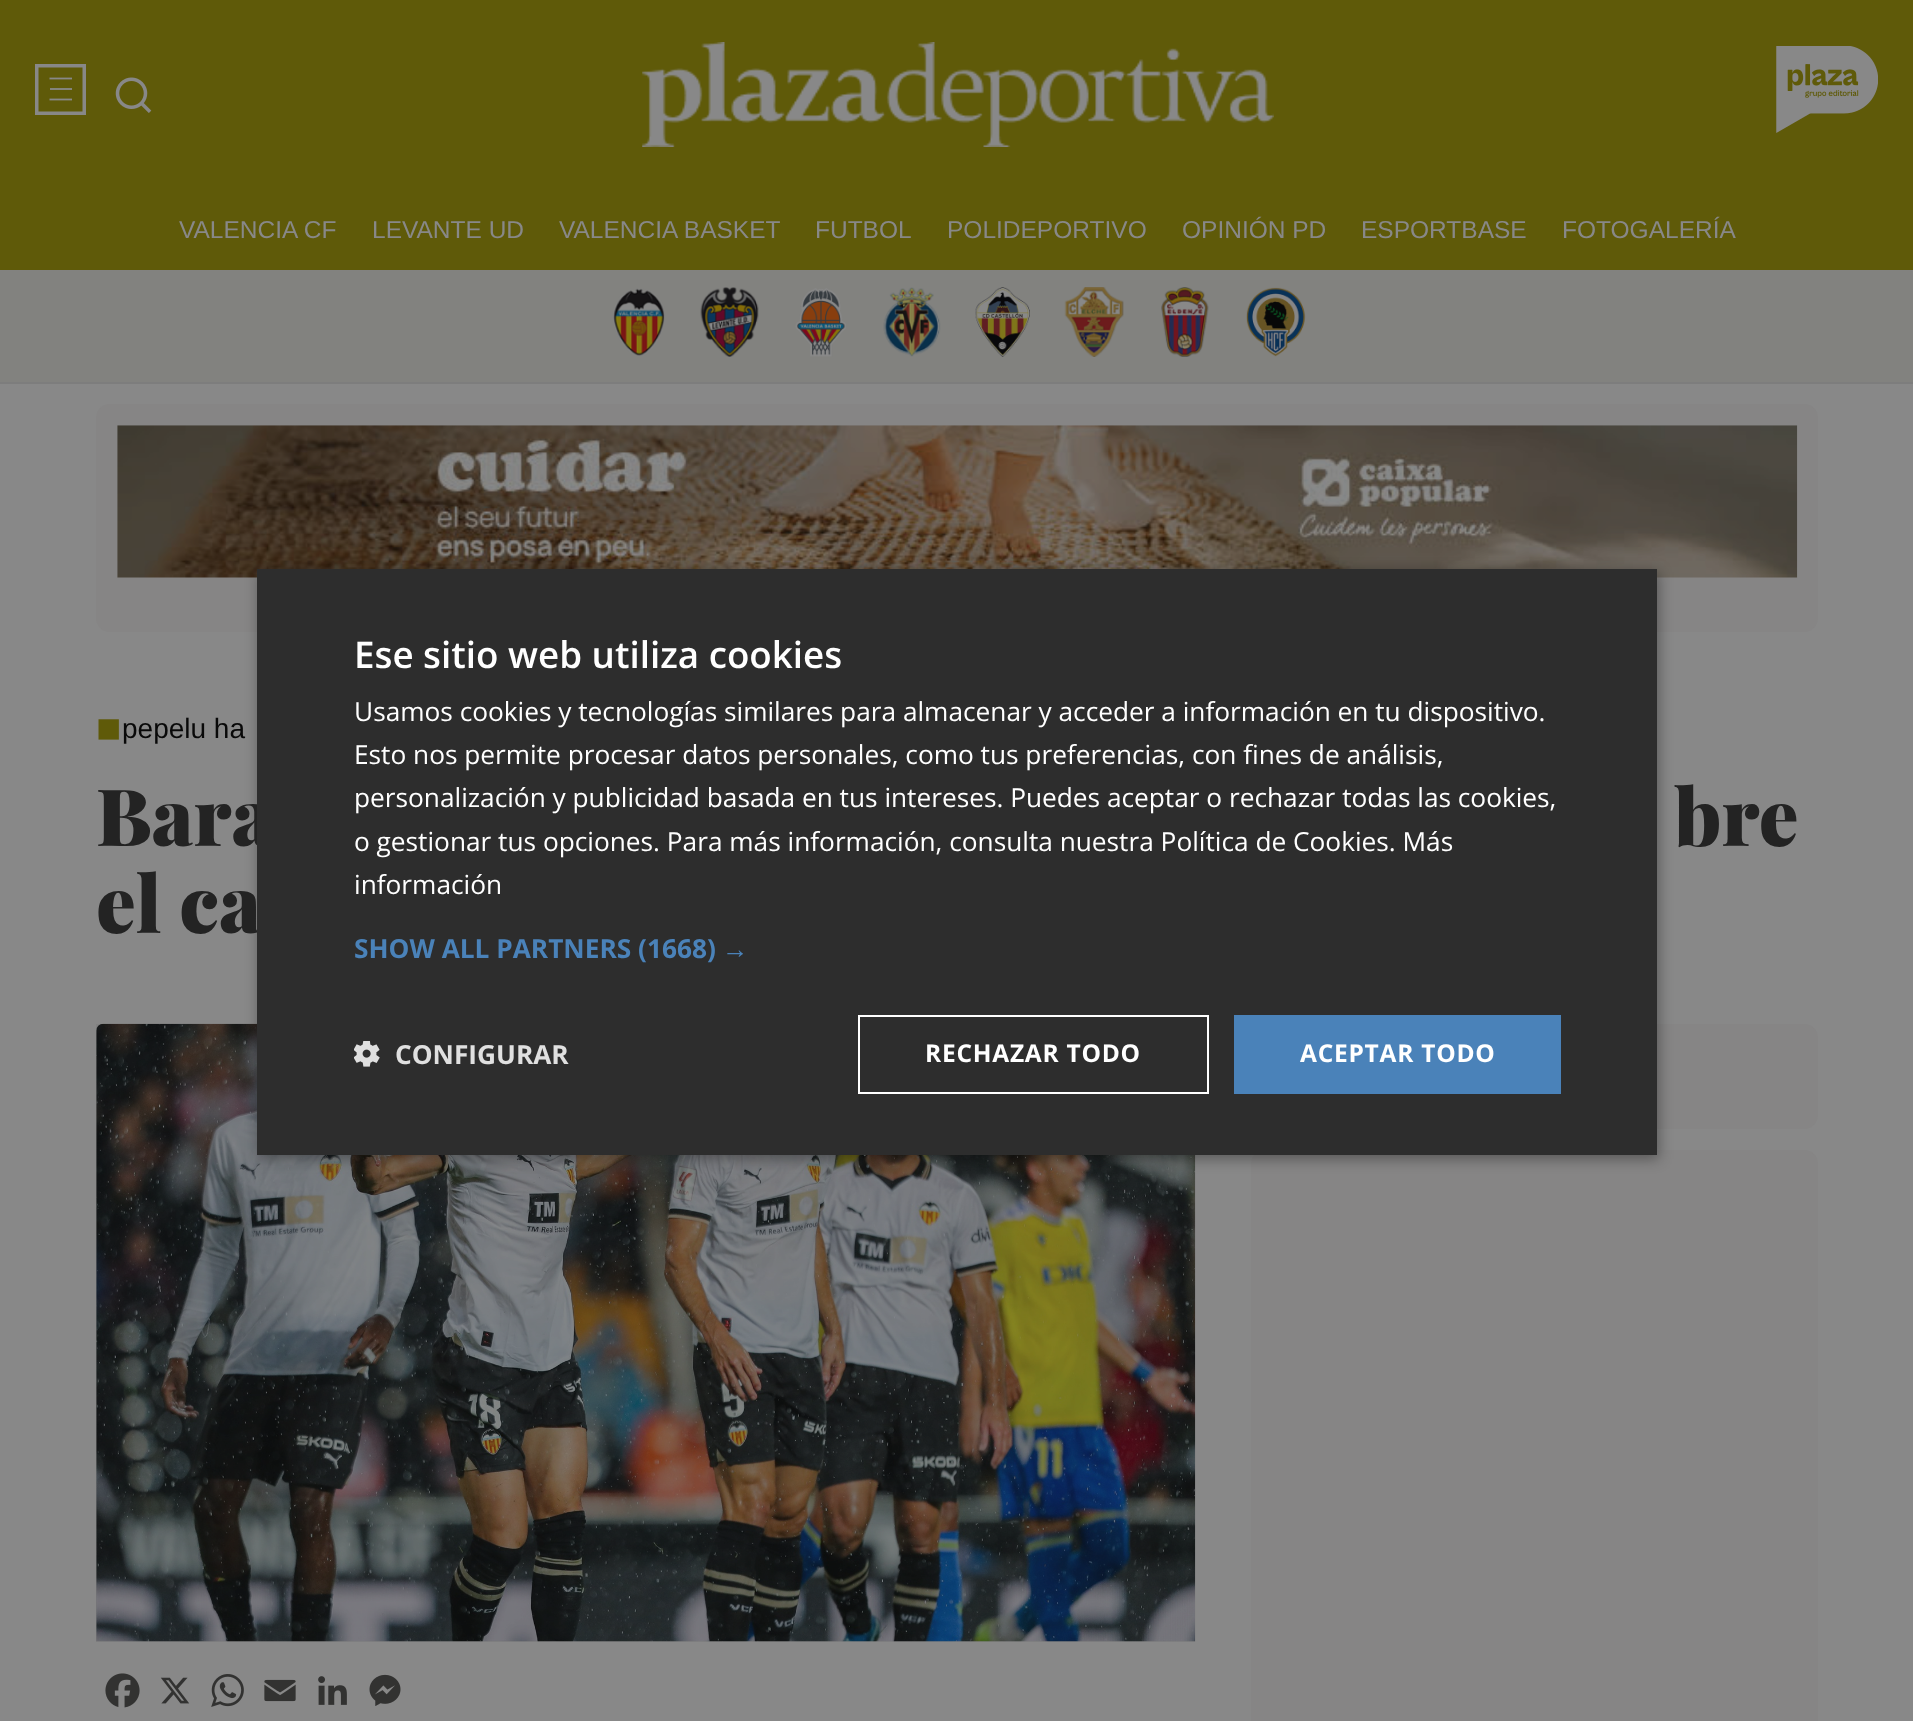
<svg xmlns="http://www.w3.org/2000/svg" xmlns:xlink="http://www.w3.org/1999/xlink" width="1913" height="1721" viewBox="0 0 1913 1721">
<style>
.cls-1{font:24.5px Liberation Sans;fill:#888888}
.cls-2{font:42px Liberation Sans;fill:#5f5a09}
.cls-3{font:28px Liberation Sans;fill:#090909}
.cls-4{font:900 79px Playfair Display;fill:#232323}
.cls-5{font:600 36.75px Open Sans;fill:#ffffff}
.cls-6{font:bold 26.25px Open Sans;fill:#e0e0e0}
.cls-7{font:bold 24.5px Open Sans;letter-spacing:0.75px;fill:#ffffff}
.cls-8{font:bold 26.25px Liberation Sans;fill:#4a82b9}
.cls-9{font:bold 26.25px Open Sans;fill:#4a82b9}
.cls-10{font:26.25px Open Sans;fill:#ffffff}
</style>
<rect width="100%" height="100%" fill="#888888"/>
<rect fill="#5f5a09" x="0" y="0" width="1913" height="270"/>
<rect fill="#7d7d7d" x="0" y="382" width="1913" height="2"/>
<rect fill="none" stroke="#888888" stroke-width="3.5" x="36.75" y="65.75" width="47.5" height="47.5"/>
<path fill="none" stroke="#888888" stroke-width="1.8" d="M49.5 78.5H72"/>
<rect fill="#84847c" x="50" y="88" width="22" height="2"/>
<path fill="none" stroke="#888888" stroke-width="1.8" d="M49.5 99.5H72"/>
<image xlink:href="image0.png" x="115" y="77" width="37" height="36"/>
<image xlink:href="image1.png" x="642" y="42" width="632" height="105"/>
<image xlink:href="image2.png" x="1776" y="46" width="102" height="87"/>
<rect fill="#82827f" x="0" y="270" width="1913" height="112"/>
<image xlink:href="image3.png" x="613" y="288" width="52" height="68"/>
<image xlink:href="image4.png" x="700" y="287" width="59" height="70"/>
<image xlink:href="image5.png" x="795" y="288" width="51" height="69"/>
<image xlink:href="image6.png" x="883" y="287" width="58" height="70"/>
<image xlink:href="image7.png" x="975" y="287" width="55" height="70"/>
<image xlink:href="image8.png" x="1064" y="287" width="60" height="70"/>
<image xlink:href="image9.png" x="1161" y="287" width="48" height="70"/>
<image xlink:href="image10.png" x="1246" y="287" width="60" height="70"/>
<rect fill="#868585" x="96" y="404" width="1722" height="228" rx="14"/>
<image xlink:href="image12.png" x="117" y="425" width="1681" height="153"/>
<rect fill="#818181" x="96" y="1024" width="1099" height="618"/>
<image xlink:href="image13.png" x="96" y="1023" width="1100" height="619"/>
<rect fill="#868585" x="1251" y="1024" width="567" height="105" rx="14"/>
<rect fill="#868585" x="1251" y="1150" width="567" height="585" rx="14"/>
<rect fill="#000000" fill-opacity="0.35" filter="blur(7px)" x="259" y="572" width="1400" height="587"/>
<image xlink:href="image14.png" x="105" y="1673" width="35" height="35"/>
<image xlink:href="image15.png" x="160" y="1677" width="30" height="27"/>
<image xlink:href="image16.png" x="211" y="1674" width="33" height="33"/>
<image xlink:href="image17.png" x="264" y="1679" width="32" height="23"/>
<image xlink:href="image18.png" x="318" y="1676" width="29" height="29"/>
<image xlink:href="image19.png" x="369" y="1674" width="32" height="32"/>
<text class="cls-1" x="179" y="238">VALENCIA CF</text>
<text class="cls-1" x="372" y="238">LEVANTE UD</text>
<text class="cls-1" x="559" y="238">VALENCIA BASKET</text>
<text class="cls-1" x="815" y="238">FUTBOL</text>
<text class="cls-1" x="947" y="238">POLIDEPORTIVO</text>
<text class="cls-1" x="1182" y="238">OPINIÓN PD</text>
<text class="cls-1" x="1361" y="238">ESPORTBASE</text>
<text class="cls-1" x="1562" y="238">FOTOGALERÍA</text>
<text class="cls-2" x="96" y="742">■</text>
<text class="cls-3" x="122" y="738">pepelu ha</text>
<text class="cls-4" x="96" y="846">Bara</text>
<text class="cls-4" x="1674" y="846">bre</text>
<text class="cls-4" x="96" y="933">el ca</text>
<rect fill="#2d2d2d" x="257" y="569" width="1400" height="586"/>
<text class="cls-5" x="354" y="668">Ese sitio web utiliza cookies</text>
<image xlink:href="image11.png" x="354" y="1041" width="26" height="26"/>
<text class="cls-6" x="395" y="1064">CONFIGURAR</text>
<rect fill="none" stroke="#ffffff" stroke-width="2" x="859" y="1016" width="349" height="77"/>
<text class="cls-7" x="925" y="1062">RECHAZAR TODO</text>
<rect fill="#4a82b9" x="1234" y="1015" width="327" height="79"/>
<text class="cls-7" x="1300" y="1062">ACEPTAR TODO</text>
<text class="cls-8" x="722" y="958">→</text>
<text class="cls-9" x="354" y="958">SHOW ALL PARTNERS (1668)</text>
<text class="cls-10" x="354" y="894">información</text>
<text class="cls-10" x="354" y="851">o gestionar tus opciones. Para más información, consulta nuestra Política de Cookies. Más</text>
<text class="cls-10" x="354" y="807">personalización y publicidad basada en tus intereses. Puedes aceptar o rechazar todas las cookies,</text>
<text class="cls-10" x="354" y="764">Esto nos permite procesar datos personales, como tus preferencias, con fines de análisis,</text>
<text class="cls-10" x="354" y="721">Usamos cookies y tecnologías similares para almacenar y acceder a información en tu dispositivo.</text>
</svg>
